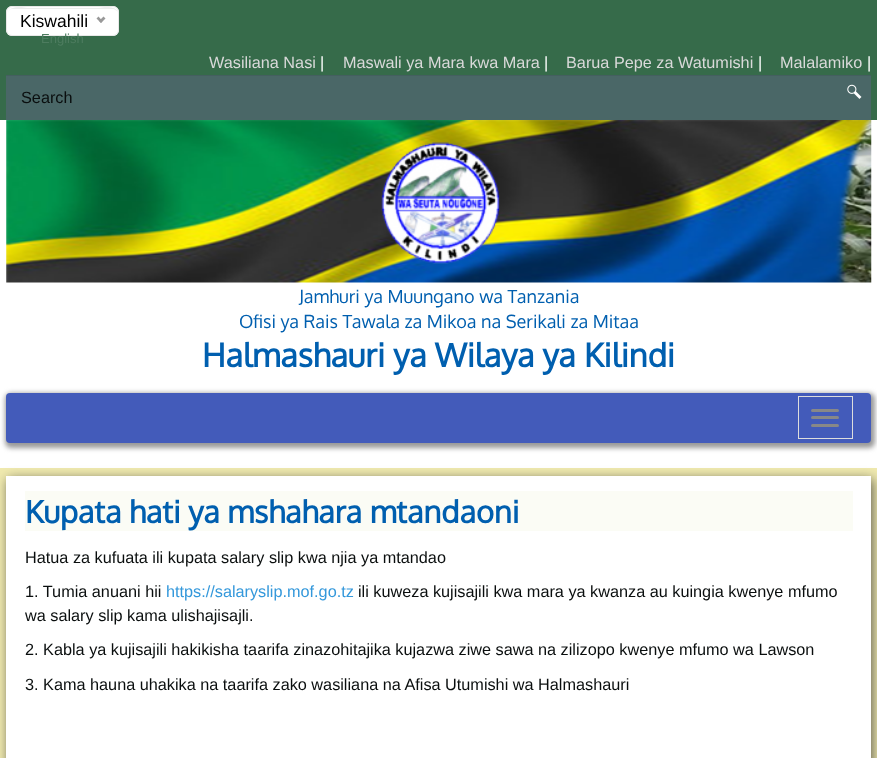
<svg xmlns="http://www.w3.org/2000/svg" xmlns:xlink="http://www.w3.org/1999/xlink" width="877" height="758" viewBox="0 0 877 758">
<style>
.cls-1{font:17.5px Liberation Sans;fill:#000000}
.cls-2{font:13px Liberation Sans;fill:#4d7c5f}
.cls-3{font:16.25px Liberation Sans;fill:#d9d9d9}
.cls-4{font:16.25px Liberation Sans;fill:#ffffff}
.cls-5{font:16.25px Liberation Sans;fill:#0a0e0e}
.cls-6{font:18.1px Oxygen;fill:#005faf}
.cls-7{font:bold 32.5px Oxygen;fill:#005faf}
.cls-8{font:bold 30.75px Oxygen;fill:#005faf}
.cls-9{font:16.25px Liberation Sans;fill:#3498db}
</style>
<rect width="100%" height="100%" fill="#f0eaaf"/>
<rect fill="#366b4a" x="0" y="0" width="877" height="120"/>
<rect fill="#ffffff" x="6" y="6" width="113" height="30" rx="6"/>
<path fill="#ececec" d="M12 9H112C115 9 118 11 118 14C118 4 101 8 96 8H30C25 8 8 4 8 14C8 11 10 9 12 9Z"/>
<rect fill="none" stroke="#e8e8e8" x="6.5" y="6.5" width="112" height="29" rx="5.5"/>
<path fill="#999999" d="M103.5 16.5L105.5 18.5L101 23L99 21Z"/>
<path fill="#999999" d="M98.5 16.5L102.5 21L101 23L96.5 18.5Z"/>
<rect fill="#4a6767" x="6" y="76" width="865" height="44"/>
<rect fill="#445f5f" x="6" y="75" width="865" height="1"/>
<image xlink:href="image0.png" x="847" y="84" width="15" height="15"/>
<rect fill="#ffffff" x="0" y="120" width="877" height="348"/>
<image xlink:href="image1.png" x="6" y="120" width="866" height="163"/>
<image xlink:href="image2.png" x="381" y="142" width="119" height="122"/>
<rect fill="#999999" filter="blur(2.5px)" x="5" y="393" width="870" height="55" rx="6"/>
<rect fill="#435bba" x="6" y="393" width="865" height="50" rx="4"/>
<rect fill="none" stroke="#dddddd" x="798.5" y="396.5" width="54" height="42"/>
<rect fill="#888888" x="811" y="409" width="28" height="3" rx="1.5"/>
<rect fill="#888888" x="811" y="416" width="28" height="3" rx="1.5"/>
<rect fill="#888888" x="811" y="424" width="28" height="3" rx="1.5"/>
<rect fill="#323232" fill-opacity="0.75" filter="blur(6px)" x="8" y="479" width="865" height="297"/>
<rect fill="#ffffff" x="6" y="476" width="865" height="282"/>
<rect fill="#fbfcf5" x="25" y="491" width="828" height="40"/>
<text class="cls-1" x="20" y="27">Kiswahili</text>
<text class="cls-2" x="41" y="43">English</text>
<text class="cls-3" x="209" y="68">Wasiliana Nasi</text>
<text class="cls-4" x="320" y="68">|</text>
<text class="cls-3" x="343" y="68">Maswali ya Mara kwa Mara</text>
<text class="cls-4" x="544" y="68">|</text>
<text class="cls-3" x="566" y="68">Barua Pepe za Watumishi</text>
<text class="cls-4" x="758" y="68">|</text>
<text class="cls-3" x="780" y="68">Malalamiko</text>
<text class="cls-4" x="867" y="68">|</text>
<text class="cls-5" x="21" y="103">Search</text>
<text class="cls-6" x="299" y="303">Jamhuri ya Muungano wa Tanzania</text>
<text class="cls-6" x="239" y="328">Ofisi ya Rais Tawala za Mikoa na Serikali za Mitaa</text>
<text class="cls-7" x="202" y="367">Halmashauri ya Wilaya ya Kilindi</text>
<text class="cls-8" x="25" y="523">Kupata hati ya mshahara mtandaoni</text>
<text class="cls-5" x="25" y="563">Hatua za kufuata ili kupata salary slip kwa njia ya mtandao</text>
<text class="cls-5" x="25" y="597">1. Tumia anuani hii</text>
<text class="cls-9" x="166" y="597">https://salaryslip.mof.go.tz</text>
<text class="cls-5" x="358" y="597">ili kuweza kujisajili kwa mara ya kwanza au kuingia kwenye mfumo</text>
<text class="cls-5" x="25" y="621">wa salary slip kama ulishajisajli.</text>
<text class="cls-5" x="25" y="655">2. Kabla ya kujisajili hakikisha taarifa zinazohitajika kujazwa ziwe sawa na zilizopo kwenye mfumo wa Lawson</text>
<text class="cls-5" x="25" y="690">3. Kama hauna uhakika na taarifa zako wasiliana na Afisa Utumishi wa Halmashauri</text>
</svg>
